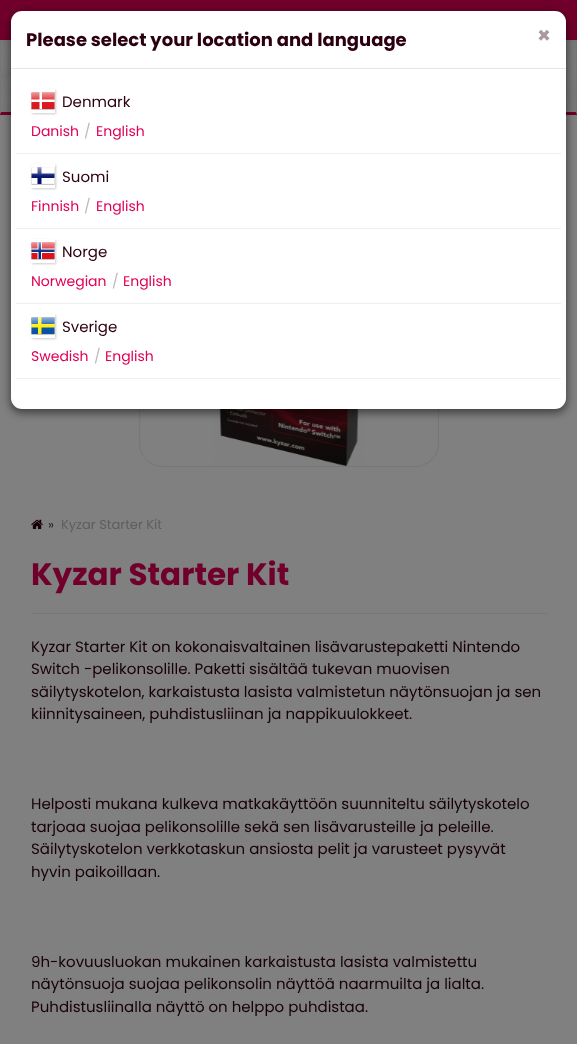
<svg xmlns="http://www.w3.org/2000/svg" xmlns:xlink="http://www.w3.org/1999/xlink" width="577" height="1044" viewBox="0 0 577 1044">
<style>
.cls-1{font:bold 18px Poppins;fill:#2d0011}
.cls-2{font:bold 22px Poppins;fill:#ab99a0}
.cls-3{font:15px Poppins;fill:#2d0011}
.cls-4{font:14px Poppins;fill:#e00055}
.cls-5{font:14px Poppins;fill:#bbbbbb}
.cls-6{font:13px Poppins;fill:#1c2125}
.cls-7{font:13px Poppins;fill:#5e5e5e}
.cls-8{font:bold 31px Poppins;fill:#70002b}
.cls-9{font:15px Poppins;fill:#170009}
</style>
<defs>
<clipPath id="clip1"><path d="M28 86H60V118H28ZM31 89H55V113H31Z" clip-rule="evenodd"/></clipPath>
<clipPath id="clip2"><path d="M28 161H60V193H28ZM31 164H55V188H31Z" clip-rule="evenodd"/></clipPath>
<clipPath id="clip3"><path d="M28 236H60V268H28ZM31 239H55V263H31Z" clip-rule="evenodd"/></clipPath>
<clipPath id="clip4"><path d="M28 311H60V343H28ZM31 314H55V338H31Z" clip-rule="evenodd"/></clipPath>
</defs>
<rect width="100%" height="100%" fill="#808080"/>
<rect fill="#70002b" x="0" y="0" width="577" height="40"/>
<rect fill="#777777" x="0" y="40" width="577" height="75"/>
<image xlink:href="image0.png" x="1" y="42" width="575" height="70"/>
<path fill="#70002b" d="M577 115H0L1 112H576Z"/>
<rect fill="#777777" x="139" y="167" width="300" height="300" rx="24"/>
<image xlink:href="image5.png" x="140" y="409" width="298" height="57"/>
<rect fill="#000000" fill-opacity="0.5" filter="blur(4.5px)" x="10" y="13" width="557" height="400" rx="12"/>
<rect fill="#ffffff" x="11" y="11" width="555" height="398" rx="11"/>
<rect fill="#e5e5e5" x="11" y="68" width="555" height="1"/>
<rect fill="#eeeeee" x="16" y="153" width="545" height="1"/>
<g clip-path="url(#clip1)">
<rect fill="#000000" fill-opacity="0.2" filter="blur(1px)" x="32" y="90" width="24" height="24"/>
</g>
<image xlink:href="image1.png" x="31" y="92" width="24" height="18"/>
<rect fill="#eeeeee" x="16" y="228" width="545" height="1"/>
<g clip-path="url(#clip2)">
<rect fill="#000000" fill-opacity="0.2" filter="blur(1px)" x="32" y="165" width="24" height="24"/>
</g>
<image xlink:href="image2.png" x="31" y="167" width="24" height="18"/>
<rect fill="#eeeeee" x="16" y="303" width="545" height="1"/>
<g clip-path="url(#clip3)">
<rect fill="#000000" fill-opacity="0.2" filter="blur(1px)" x="32" y="240" width="24" height="24"/>
</g>
<image xlink:href="image3.png" x="31" y="242" width="24" height="18"/>
<rect fill="#eeeeee" x="16" y="378" width="545" height="1"/>
<g clip-path="url(#clip4)">
<rect fill="#000000" fill-opacity="0.2" filter="blur(1px)" x="32" y="315" width="24" height="24"/>
</g>
<image xlink:href="image4.png" x="31" y="317" width="24" height="18"/>
<image xlink:href="image6.png" x="31" y="519" width="12" height="10"/>
<rect fill="#777777" x="31" y="613" width="516" height="1"/>
<text class="cls-1" x="26" y="46">Please select your location and language</text>
<text class="cls-2" x="537" y="43">×</text>
<text class="cls-3" x="62" y="107">Denmark</text>
<text class="cls-4" x="31" y="136">Danish</text>
<text class="cls-5" x="84" y="136">/</text>
<text class="cls-4" x="96" y="136">English</text>
<text class="cls-3" x="62" y="182">Suomi</text>
<text class="cls-4" x="31" y="211">Finnish</text>
<text class="cls-5" x="84" y="211">/</text>
<text class="cls-4" x="96" y="211">English</text>
<text class="cls-3" x="62" y="257">Norge</text>
<text class="cls-4" x="31" y="286">Norwegian</text>
<text class="cls-5" x="112" y="286">/</text>
<text class="cls-4" x="123" y="286">English</text>
<text class="cls-3" x="62" y="332">Sverige</text>
<text class="cls-4" x="31" y="361">Swedish</text>
<text class="cls-5" x="94" y="361">/</text>
<text class="cls-4" x="105" y="361">English</text>
<text class="cls-6" x="48" y="529">»</text>
<text class="cls-7" x="61" y="529">Kyzar Starter Kit</text>
<text class="cls-8" x="31" y="585">Kyzar Starter Kit</text>
<text class="cls-9"><tspan x="31" y="652">Kyzar Starter Kit on kokonaisvaltainen lisävarustepaketti Nintendo</tspan><tspan x="31" y="674">Switch -pelikonsolille. Paketti sisältää tukevan muovisen</tspan><tspan x="31" y="697">säilytyskotelon, karkaistusta lasista valmistetun näytönsuojan ja sen</tspan><tspan x="31" y="719">kiinnitysaineen, puhdistusliinan ja nappikuulokkeet.</tspan></text>
<text class="cls-9"><tspan x="31" y="809">Helposti mukana kulkeva matkakäyttöön suunniteltu säilytyskotelo</tspan><tspan x="31" y="832">tarjoaa suojaa pelikonsolille sekä sen lisävarusteille ja peleille.</tspan><tspan x="31" y="854">Säilytyskotelon verkkotaskun ansiosta pelit ja varusteet pysyvät</tspan><tspan x="31" y="877">hyvin paikoillaan.</tspan></text>
<text class="cls-9"><tspan x="31" y="967">9h-kovuusluokan mukainen karkaistusta lasista valmistettu</tspan><tspan x="31" y="989">näytönsuoja suojaa pelikonsolin näyttöä naarmuilta ja lialta.</tspan><tspan x="31" y="1012">Puhdistusliinalla näyttö on helppo puhdistaa.</tspan></text>
</svg>
